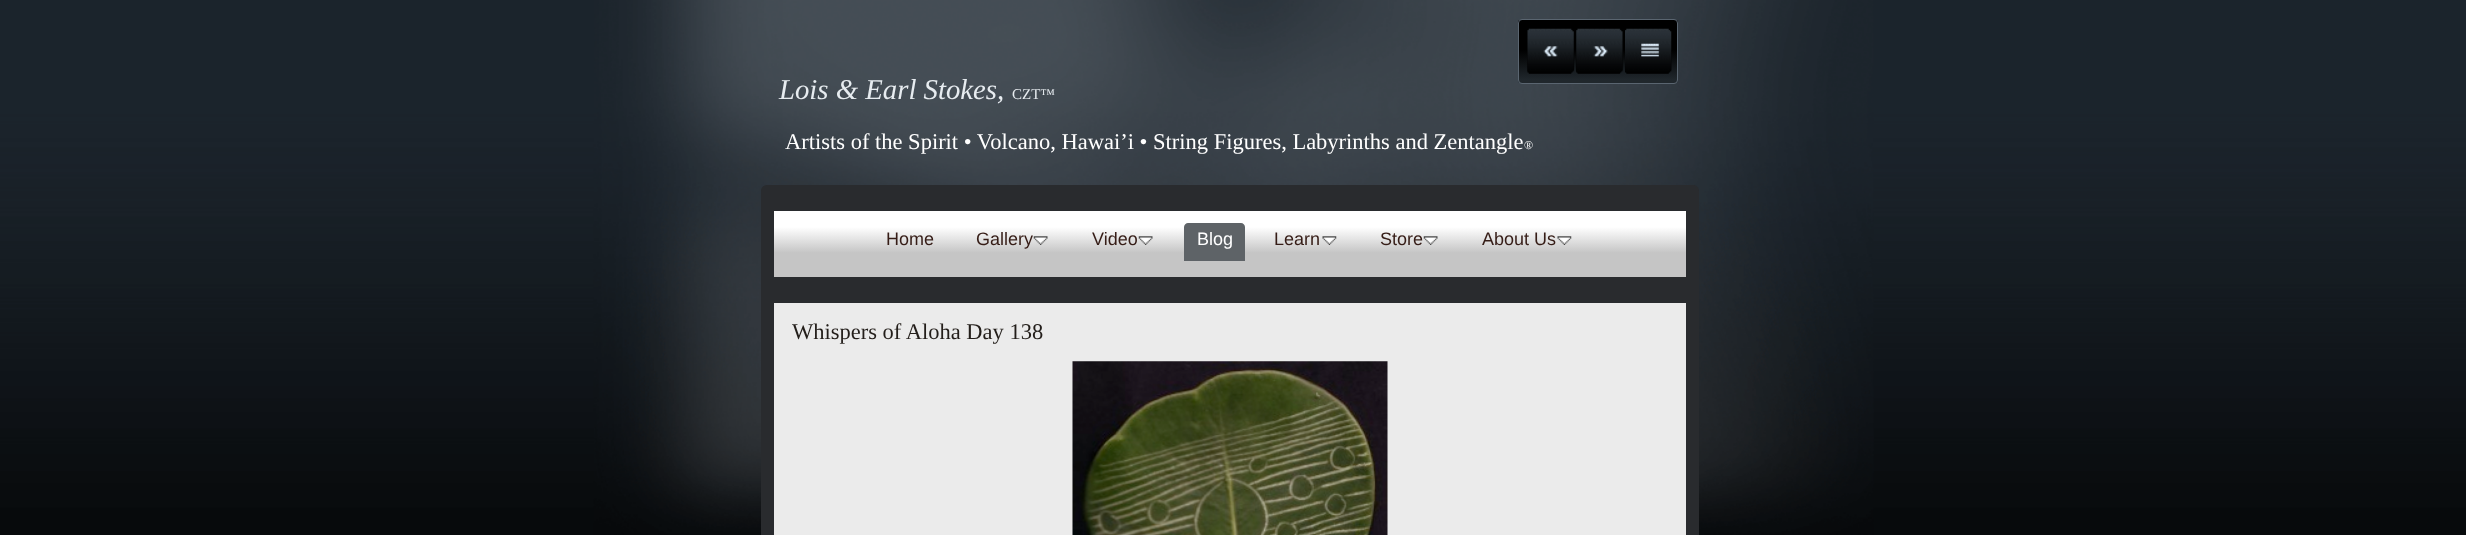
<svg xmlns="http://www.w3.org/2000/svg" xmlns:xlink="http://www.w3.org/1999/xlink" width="2466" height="535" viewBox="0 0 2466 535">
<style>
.cls-1{font:italic 28.75px Liberation Serif;fill:#e7ecf0}
.cls-2{font:15px Liberation Serif;fill:#e7ecf0}
.cls-3{font:22.5px Liberation Serif;fill:#ffffff}
.cls-4{font:12px Liberation Serif;fill:#ffffff}
.cls-5{font:18px Liberation Sans;fill:#361d17}
.cls-6{font:18px Liberation Sans;fill:#ffffff}
.cls-7{font:22.5px Liberation Serif;fill:#231e1a}
</style>
<defs>
<linearGradient id="g1" gradientUnits="userSpaceOnUse" x1="774" y1="210" x2="774" y2="278"><stop offset="0.25" stop-color="#ffffff"/><stop offset="0.63" stop-color="#c5c5c5"/><stop offset="0.82" stop-color="#c5c5c5"/></linearGradient>
<clipPath id="clip1"><rect x="1518" y="19" width="160" height="65" rx="4"/></clipPath>
<linearGradient id="g2" gradientUnits="userSpaceOnUse" x1="1519" y1="83" x2="1519" y2="20"><stop offset="0.05" stop-color="#20272c"/><stop offset="0.53" stop-color="#000000"/></linearGradient>
</defs>
<rect width="100%" height="100%" fill="#ffffff"/>
<image xlink:href="image0.png" x="0" y="0" width="2466" height="535"/>
<path fill="#292b2e" d="M767 185H1693C1696.5 185 1699 187.5 1699 191V210H761V191C761 187.5 763.5 185 767 185Z"/>
<rect fill="url(#g1)" x="774" y="211" width="912" height="66"/>
<rect fill="none" stroke="#292b2e" stroke-width="13" x="767.5" y="204.5" width="925" height="79"/>
<image xlink:href="image1.png" x="1033" y="236" width="15" height="9"/>
<image xlink:href="image2.png" x="1138" y="236" width="15" height="9"/>
<path fill="#5e6367" d="M1188 223H1241C1243 223 1245 225 1245 227V261H1184V227C1184 225 1186 223 1188 223Z"/>
<image xlink:href="image3.png" x="1322" y="236" width="15" height="9"/>
<image xlink:href="image2.png" x="1423" y="236" width="15" height="9"/>
<image xlink:href="image3.png" x="1557" y="236" width="15" height="9"/>
<rect fill="#ebebeb" stroke="#292b2e" stroke-width="13" x="767.5" y="296.5" width="925" height="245"/>
<g clip-path="url(#clip1)">
<rect fill="url(#g2)" x="1518" y="20" width="160" height="63"/>
</g>
<rect fill="none" stroke="#5a6570" x="1518.5" y="19.5" width="159" height="64" rx="3.5"/>
<image xlink:href="image4.png" x="1527" y="44" width="47" height="29"/>
<image xlink:href="image5.png" x="1527" y="28" width="47" height="46"/>
<image xlink:href="image6.png" x="1576" y="44" width="47" height="29"/>
<image xlink:href="image7.png" x="1576" y="28" width="47" height="46"/>
<image xlink:href="image8.png" x="1626" y="42" width="46" height="31"/>
<image xlink:href="image9.png" x="1625" y="28" width="47" height="46"/>
<image xlink:href="image10.png" x="1072" y="361" width="316" height="174"/>
<text class="cls-1" x="779" y="99">Lois &amp; Earl Stokes,</text>
<text class="cls-2" x="1012" y="99">CZT™</text>
<text class="cls-3" x="785" y="149">Artists of the Spirit • Volcano, Hawai’i • String Figures, Labyrinths and Zentangle</text>
<text class="cls-4" x="1524" y="149">®</text>
<text class="cls-5" x="886" y="245">Home</text>
<text class="cls-5" x="976" y="245">Gallery</text>
<text class="cls-5" x="1092" y="245">Video</text>
<text class="cls-6" x="1197" y="245">Blog</text>
<text class="cls-5" x="1274" y="245">Learn</text>
<text class="cls-5" x="1380" y="245">Store</text>
<text class="cls-5" x="1482" y="245">About Us</text>
<text class="cls-7" x="792" y="339">Whispers of Aloha Day 138</text>
</svg>
